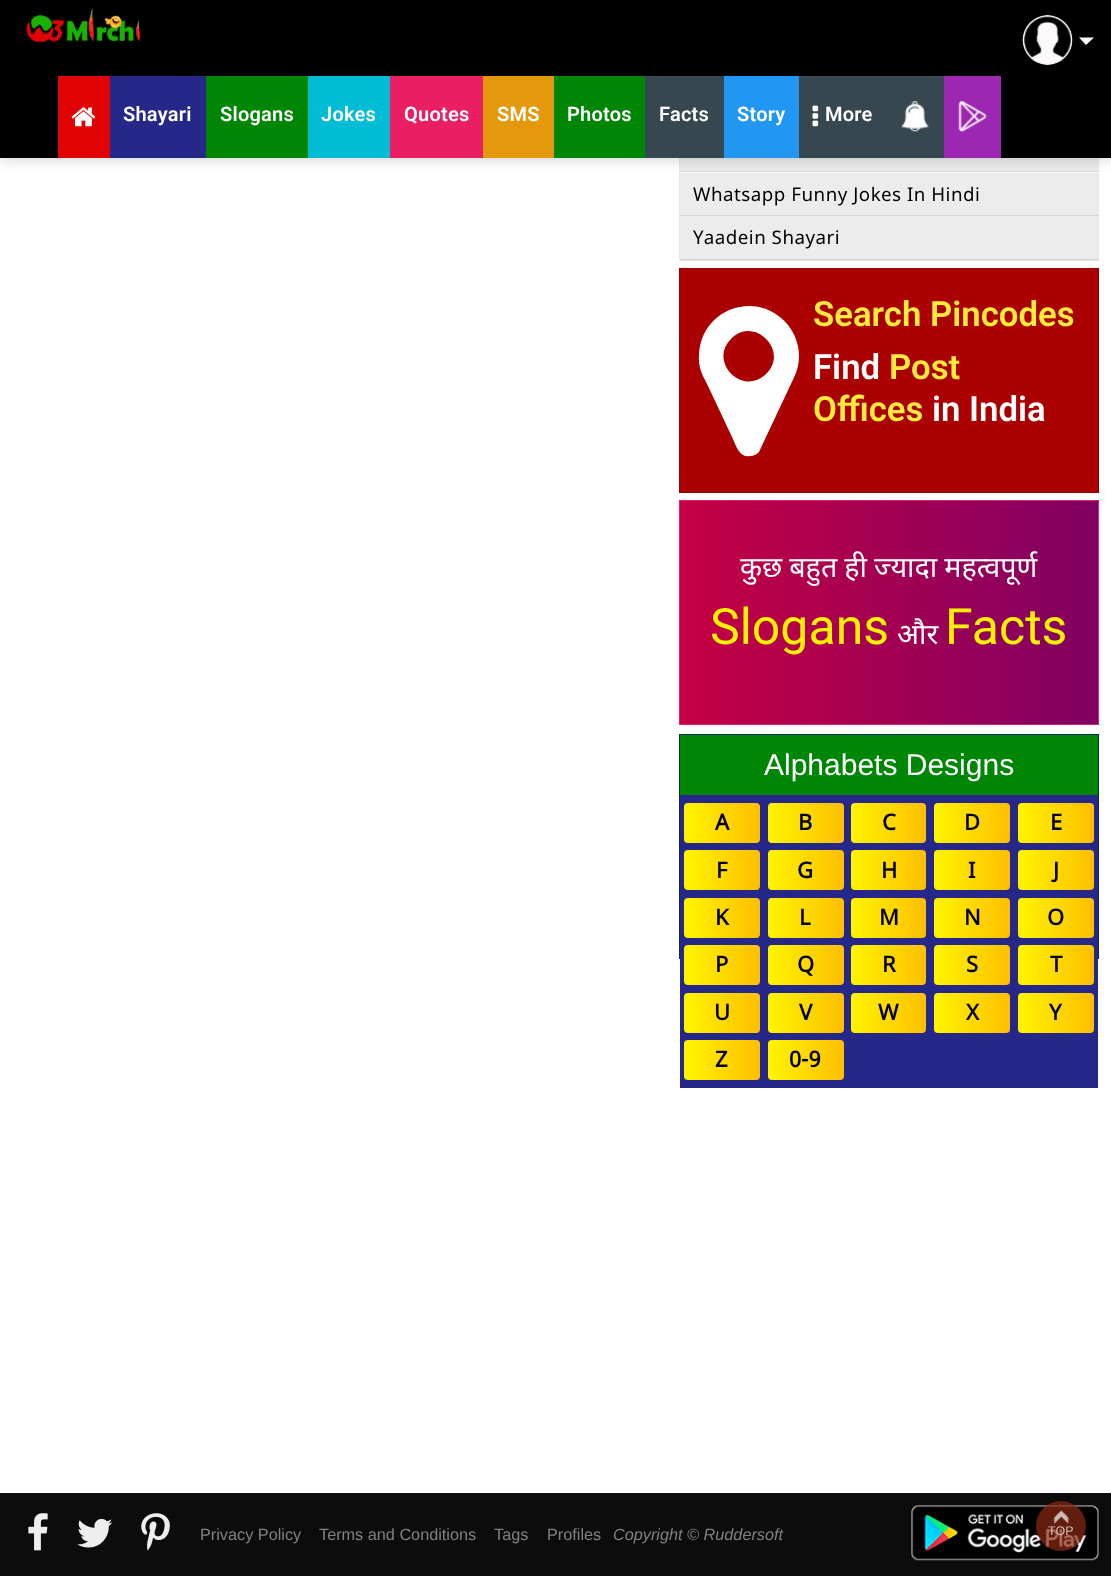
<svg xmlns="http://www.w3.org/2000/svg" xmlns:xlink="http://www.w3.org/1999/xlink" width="1111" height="1576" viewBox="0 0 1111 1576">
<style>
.cls-1{font:600 20px Roboto;letter-spacing:0.25px;fill:#ffffff}
.cls-2{font:18.75px Noto Sans;letter-spacing:0.5px;fill:#000000}
.cls-3{font:600 34.75px Roboto;fill:#ffeb3b}
.cls-4{font:600 34.75px Roboto;fill:#ffffff}
.cls-5{font:28.75px 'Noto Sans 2';fill:#ffffff}
.cls-6{font:50px Roboto;fill:#fff100}
.cls-7{font:30px Liberation Sans;fill:#ffffff}
.cls-8{font:bold 22px Noto Sans;fill:#000000}
.cls-9{font:16.25px Liberation Sans;fill:#828282}
.cls-10{font:italic 16.25px Liberation Sans;fill:#828282}
.cls-11{font:12.5px Liberation Sans;fill:#d3beba}
</style>
<defs>
<linearGradient id="g1" gradientUnits="userSpaceOnUse" x1="680" y1="613" x2="1098" y2="613"><stop offset="0" stop-color="#c50043"/><stop offset="1" stop-color="#800062"/></linearGradient>
<linearGradient id="g2" gradientUnits="userSpaceOnUse" x1="684" y1="823" x2="760" y2="823"><stop offset="0" stop-color="#fff400"/><stop offset="1" stop-color="#ffbf00"/></linearGradient>
<linearGradient id="g3" gradientUnits="userSpaceOnUse" x1="768" y1="823" x2="844" y2="823"><stop offset="0" stop-color="#fff400"/><stop offset="1" stop-color="#ffbf00"/></linearGradient>
<linearGradient id="g4" gradientUnits="userSpaceOnUse" x1="851" y1="823" x2="926" y2="823"><stop offset="0" stop-color="#fff400"/><stop offset="1" stop-color="#ffbf00"/></linearGradient>
<linearGradient id="g5" gradientUnits="userSpaceOnUse" x1="934" y1="823" x2="1010" y2="823"><stop offset="0" stop-color="#fff400"/><stop offset="1" stop-color="#ffbf00"/></linearGradient>
<linearGradient id="g6" gradientUnits="userSpaceOnUse" x1="1018" y1="823" x2="1094" y2="823"><stop offset="0" stop-color="#fff400"/><stop offset="1" stop-color="#ffbf00"/></linearGradient>
<linearGradient id="g7" gradientUnits="userSpaceOnUse" x1="684" y1="870" x2="760" y2="870"><stop offset="0" stop-color="#fff400"/><stop offset="1" stop-color="#ffbf00"/></linearGradient>
<linearGradient id="g8" gradientUnits="userSpaceOnUse" x1="768" y1="870" x2="844" y2="870"><stop offset="0" stop-color="#fff400"/><stop offset="1" stop-color="#ffbf00"/></linearGradient>
<linearGradient id="g9" gradientUnits="userSpaceOnUse" x1="851" y1="870" x2="926" y2="870"><stop offset="0" stop-color="#fff400"/><stop offset="1" stop-color="#ffbf00"/></linearGradient>
<linearGradient id="g10" gradientUnits="userSpaceOnUse" x1="934" y1="870" x2="1010" y2="870"><stop offset="0" stop-color="#fff400"/><stop offset="1" stop-color="#ffbf00"/></linearGradient>
<linearGradient id="g11" gradientUnits="userSpaceOnUse" x1="1018" y1="870" x2="1094" y2="870"><stop offset="0" stop-color="#fff400"/><stop offset="1" stop-color="#ffbf00"/></linearGradient>
<linearGradient id="g12" gradientUnits="userSpaceOnUse" x1="684" y1="918" x2="760" y2="918"><stop offset="0" stop-color="#fff400"/><stop offset="1" stop-color="#ffbf00"/></linearGradient>
<linearGradient id="g13" gradientUnits="userSpaceOnUse" x1="768" y1="918" x2="844" y2="918"><stop offset="0" stop-color="#fff400"/><stop offset="1" stop-color="#ffbf00"/></linearGradient>
<linearGradient id="g14" gradientUnits="userSpaceOnUse" x1="851" y1="918" x2="926" y2="918"><stop offset="0" stop-color="#fff400"/><stop offset="1" stop-color="#ffbf00"/></linearGradient>
<linearGradient id="g15" gradientUnits="userSpaceOnUse" x1="934" y1="918" x2="1010" y2="918"><stop offset="0" stop-color="#fff400"/><stop offset="1" stop-color="#ffbf00"/></linearGradient>
<linearGradient id="g16" gradientUnits="userSpaceOnUse" x1="1018" y1="918" x2="1094" y2="918"><stop offset="0" stop-color="#fff400"/><stop offset="1" stop-color="#ffbf00"/></linearGradient>
<linearGradient id="g17" gradientUnits="userSpaceOnUse" x1="684" y1="965" x2="760" y2="965"><stop offset="0" stop-color="#fff400"/><stop offset="1" stop-color="#ffbf00"/></linearGradient>
<linearGradient id="g18" gradientUnits="userSpaceOnUse" x1="768" y1="965" x2="844" y2="965"><stop offset="0" stop-color="#fff400"/><stop offset="1" stop-color="#ffbf00"/></linearGradient>
<linearGradient id="g19" gradientUnits="userSpaceOnUse" x1="851" y1="965" x2="926" y2="965"><stop offset="0" stop-color="#fff400"/><stop offset="1" stop-color="#ffbf00"/></linearGradient>
<linearGradient id="g20" gradientUnits="userSpaceOnUse" x1="934" y1="965" x2="1010" y2="965"><stop offset="0" stop-color="#fff400"/><stop offset="1" stop-color="#ffbf00"/></linearGradient>
<linearGradient id="g21" gradientUnits="userSpaceOnUse" x1="1018" y1="965" x2="1094" y2="965"><stop offset="0" stop-color="#fff400"/><stop offset="1" stop-color="#ffbf00"/></linearGradient>
<linearGradient id="g22" gradientUnits="userSpaceOnUse" x1="684" y1="1013" x2="760" y2="1013"><stop offset="0" stop-color="#fff400"/><stop offset="1" stop-color="#ffbf00"/></linearGradient>
<linearGradient id="g23" gradientUnits="userSpaceOnUse" x1="768" y1="1013" x2="844" y2="1013"><stop offset="0" stop-color="#fff400"/><stop offset="1" stop-color="#ffbf00"/></linearGradient>
<linearGradient id="g24" gradientUnits="userSpaceOnUse" x1="851" y1="1013" x2="926" y2="1013"><stop offset="0" stop-color="#fff400"/><stop offset="1" stop-color="#ffbf00"/></linearGradient>
<linearGradient id="g25" gradientUnits="userSpaceOnUse" x1="934" y1="1013" x2="1010" y2="1013"><stop offset="0" stop-color="#fff400"/><stop offset="1" stop-color="#ffbf00"/></linearGradient>
<linearGradient id="g26" gradientUnits="userSpaceOnUse" x1="1018" y1="1013" x2="1094" y2="1013"><stop offset="0" stop-color="#fff400"/><stop offset="1" stop-color="#ffbf00"/></linearGradient>
<linearGradient id="g27" gradientUnits="userSpaceOnUse" x1="684" y1="1060" x2="760" y2="1060"><stop offset="0" stop-color="#fff400"/><stop offset="1" stop-color="#ffbf00"/></linearGradient>
<linearGradient id="g28" gradientUnits="userSpaceOnUse" x1="768" y1="1060" x2="844" y2="1060"><stop offset="0" stop-color="#fff400"/><stop offset="1" stop-color="#ffbf00"/></linearGradient>
</defs>
<rect width="100%" height="100%" fill="#ffffff"/>
<rect fill="none" stroke="#e6e6e6" x="679.5" y="40.5" width="419" height="220"/>
<rect fill="#d8d4d4" x="680" y="171" width="418" height="1"/>
<rect fill="#ececec" x="680" y="158" width="418" height="13"/>
<rect fill="#ececec" x="680" y="173" width="418" height="42"/>
<rect fill="#000000" fill-opacity="0.19" filter="blur(7px)" x="-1" y="-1" width="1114" height="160"/>
<rect fill="#000000" x="0" y="0" width="1111" height="158"/>
<image xlink:href="image0.png" x="26" y="8" width="115" height="35"/>
<image xlink:href="image1.png" x="1022" y="15" width="51" height="50"/>
<path fill="#ffffff" d="M1079 37.5H1094L1086 45Z"/>
<rect fill="#e00404" x="58" y="76" width="52" height="82"/>
<image xlink:href="image2.png" x="71" y="107" width="25" height="20"/>
<rect fill="#252888" x="110" y="76" width="96" height="82"/>
<rect fill="#008605" x="206" y="76" width="102" height="82"/>
<rect fill="#00bcd4" x="308" y="76" width="82" height="82"/>
<rect fill="#e91e63" x="390" y="76" width="93" height="82"/>
<rect fill="#e4990c" x="483" y="76" width="71" height="82"/>
<rect fill="#008605" x="554" y="76" width="91" height="82"/>
<rect fill="#37474f" x="645" y="76" width="79" height="82"/>
<rect fill="#2196f3" x="724" y="76" width="75" height="82"/>
<rect fill="#37474f" x="799" y="76" width="145" height="82"/>
<image xlink:href="image3.png" x="901" y="101" width="28" height="31"/>
<rect fill="#9c27b0" x="944" y="76" width="57" height="82"/>
<image xlink:href="image4.png" x="958" y="101" width="29" height="31"/>
<image xlink:href="image5.png" x="812" y="105" width="7" height="22"/>
<rect fill="#d8d4d4" x="680" y="215" width="418" height="1"/>
<rect fill="#d8d4d4" x="680" y="259" width="418" height="1"/>
<rect fill="#ececec" x="680" y="216" width="418" height="43"/>
<rect fill="#ab0000" stroke="#8e0303" x="679.5" y="268.5" width="419" height="224"/>
<path fill="#ffffff" d="M766 374C790 351 754 315 731 339C708 362 743 397 766 374ZM799 356C799 368 795 376 790 386L759 452C757 454 754 456 750 456C739 458 736 445 732 437L708 386C703 376 698 368 699 356C700 309 757 288 788 325C795 334 799 345 799 356Z"/>
<rect fill="url(#g1)" x="680" y="501" width="418" height="223"/>
<rect fill="none" stroke="#d82075" x="679.5" y="500.5" width="419" height="224"/>
<rect fill="none" stroke="#0b2c4e" x="679.5" y="734.5" width="419" height="224"/>
<rect fill="#008605" x="680" y="735" width="418" height="60"/>
<rect fill="#252888" x="680" y="795" width="418" height="293"/>
<rect fill="url(#g2)" x="684" y="803" width="76" height="40" rx="4"/>
<rect fill="url(#g3)" x="768" y="803" width="76" height="40" rx="4"/>
<rect fill="url(#g4)" x="851" y="803" width="75" height="40" rx="4"/>
<rect fill="url(#g5)" x="934" y="803" width="76" height="40" rx="4"/>
<rect fill="url(#g6)" x="1018" y="803" width="76" height="40" rx="4"/>
<rect fill="url(#g7)" x="684" y="850" width="76" height="40" rx="4"/>
<rect fill="url(#g8)" x="768" y="850" width="76" height="40" rx="4"/>
<rect fill="url(#g9)" x="851" y="850" width="75" height="40" rx="4"/>
<rect fill="url(#g10)" x="934" y="850" width="76" height="40" rx="4"/>
<rect fill="url(#g11)" x="1018" y="850" width="76" height="40" rx="4"/>
<rect fill="url(#g12)" x="684" y="898" width="76" height="40" rx="4"/>
<rect fill="url(#g13)" x="768" y="898" width="76" height="40" rx="4"/>
<rect fill="url(#g14)" x="851" y="898" width="75" height="40" rx="4"/>
<rect fill="url(#g15)" x="934" y="898" width="76" height="40" rx="4"/>
<rect fill="url(#g16)" x="1018" y="898" width="76" height="40" rx="4"/>
<rect fill="url(#g17)" x="684" y="945" width="76" height="40" rx="4"/>
<rect fill="url(#g18)" x="768" y="945" width="76" height="40" rx="4"/>
<rect fill="url(#g19)" x="851" y="945" width="75" height="40" rx="4"/>
<rect fill="url(#g20)" x="934" y="945" width="76" height="40" rx="4"/>
<rect fill="url(#g21)" x="1018" y="945" width="76" height="40" rx="4"/>
<rect fill="url(#g22)" x="684" y="993" width="76" height="40" rx="4"/>
<rect fill="url(#g23)" x="768" y="993" width="76" height="40" rx="4"/>
<rect fill="url(#g24)" x="851" y="993" width="75" height="40" rx="4"/>
<rect fill="url(#g25)" x="934" y="993" width="76" height="40" rx="4"/>
<rect fill="url(#g26)" x="1018" y="993" width="76" height="40" rx="4"/>
<rect fill="url(#g27)" x="684" y="1040" width="76" height="40" rx="4"/>
<rect fill="url(#g28)" x="768" y="1040" width="76" height="40" rx="4"/>
<rect fill="#0c0c0c" x="0" y="1493" width="1111" height="83"/>
<image xlink:href="image6.png" x="28" y="1513" width="20" height="38"/>
<image xlink:href="image7.png" x="77" y="1518" width="36" height="30"/>
<image xlink:href="image8.png" x="141" y="1513" width="29" height="38"/>
<image xlink:href="image9.png" x="911" y="1505" width="188" height="56"/>
<circle fill="#8c2a15" fill-opacity="0.7" cx="1061" cy="1526" r="25"/>
<image xlink:href="image10.png" x="1053" y="1510" width="16" height="14"/>
<text class="cls-1" x="123" y="121">Shayari</text>
<text class="cls-1" x="220" y="121">Slogans</text>
<text class="cls-1" x="321" y="121">Jokes</text>
<text class="cls-1" x="404" y="121">Quotes</text>
<text class="cls-1" x="497" y="121">SMS</text>
<text class="cls-1" x="567" y="121">Photos</text>
<text class="cls-1" x="659" y="121">Facts</text>
<text class="cls-1" x="737" y="121">Story</text>
<text class="cls-1" x="825" y="121">More</text>
<text class="cls-2" x="693" y="201">Whatsapp Funny Jokes In Hindi</text>
<text class="cls-2" x="693" y="244">Yaadein Shayari</text>
<text class="cls-3" x="813" y="326">Search Pincodes</text>
<text class="cls-4" x="813" y="379">Find</text>
<text class="cls-3" x="889" y="379">Post</text>
<text class="cls-3" x="813" y="421">Offices</text>
<text class="cls-4" x="932" y="421">in India</text>
<text class="cls-5" x="740" y="577" word-spacing="-0.5">कुछ बहुत ही ज्यादा महत्वपूर्ण</text>
<text class="cls-6" x="710" y="644">Slogans</text>
<text class="cls-5" x="897" y="644">और</text>
<text class="cls-6" x="945" y="644">Facts</text>
<text class="cls-7" x="764" y="775">Alphabets Designs</text>
<text class="cls-8" x="715" y="830">A</text>
<text class="cls-8" x="798" y="830">B</text>
<text class="cls-8" x="882" y="830">C</text>
<text class="cls-8" x="964" y="830">D</text>
<text class="cls-8" x="1050" y="830">E</text>
<text class="cls-8" x="716" y="878">F</text>
<text class="cls-8" x="797" y="878">G</text>
<text class="cls-8" x="881" y="878">H</text>
<text class="cls-8" x="968" y="878">I</text>
<text class="cls-8" x="1053" y="878">J</text>
<text class="cls-8" x="715" y="925">K</text>
<text class="cls-8" x="799" y="925">L</text>
<text class="cls-8" x="879" y="925">M</text>
<text class="cls-8" x="964" y="925">N</text>
<text class="cls-8" x="1047" y="925">O</text>
<text class="cls-8" x="715" y="972">P</text>
<text class="cls-8" x="797" y="972">Q</text>
<text class="cls-8" x="882" y="972">R</text>
<text class="cls-8" x="966" y="972">S</text>
<text class="cls-8" x="1050" y="972">T</text>
<text class="cls-8" x="714" y="1020">U</text>
<text class="cls-8" x="799" y="1020">V</text>
<text class="cls-8" x="878" y="1020">W</text>
<text class="cls-8" x="966" y="1020">X</text>
<text class="cls-8" x="1049" y="1020">Y</text>
<text class="cls-8" x="715" y="1067">Z</text>
<text class="cls-8" x="789" y="1067">0-9</text>
<text class="cls-9" x="200" y="1540">Privacy Policy</text>
<text class="cls-9" x="319" y="1540">Terms and Conditions</text>
<text class="cls-9" x="494" y="1540">Tags</text>
<text class="cls-9" x="547" y="1540">Profiles</text>
<text class="cls-10" x="613" y="1540">Copyright © Ruddersoft</text>
<text class="cls-11" x="1048" y="1535">TOP</text>
</svg>
